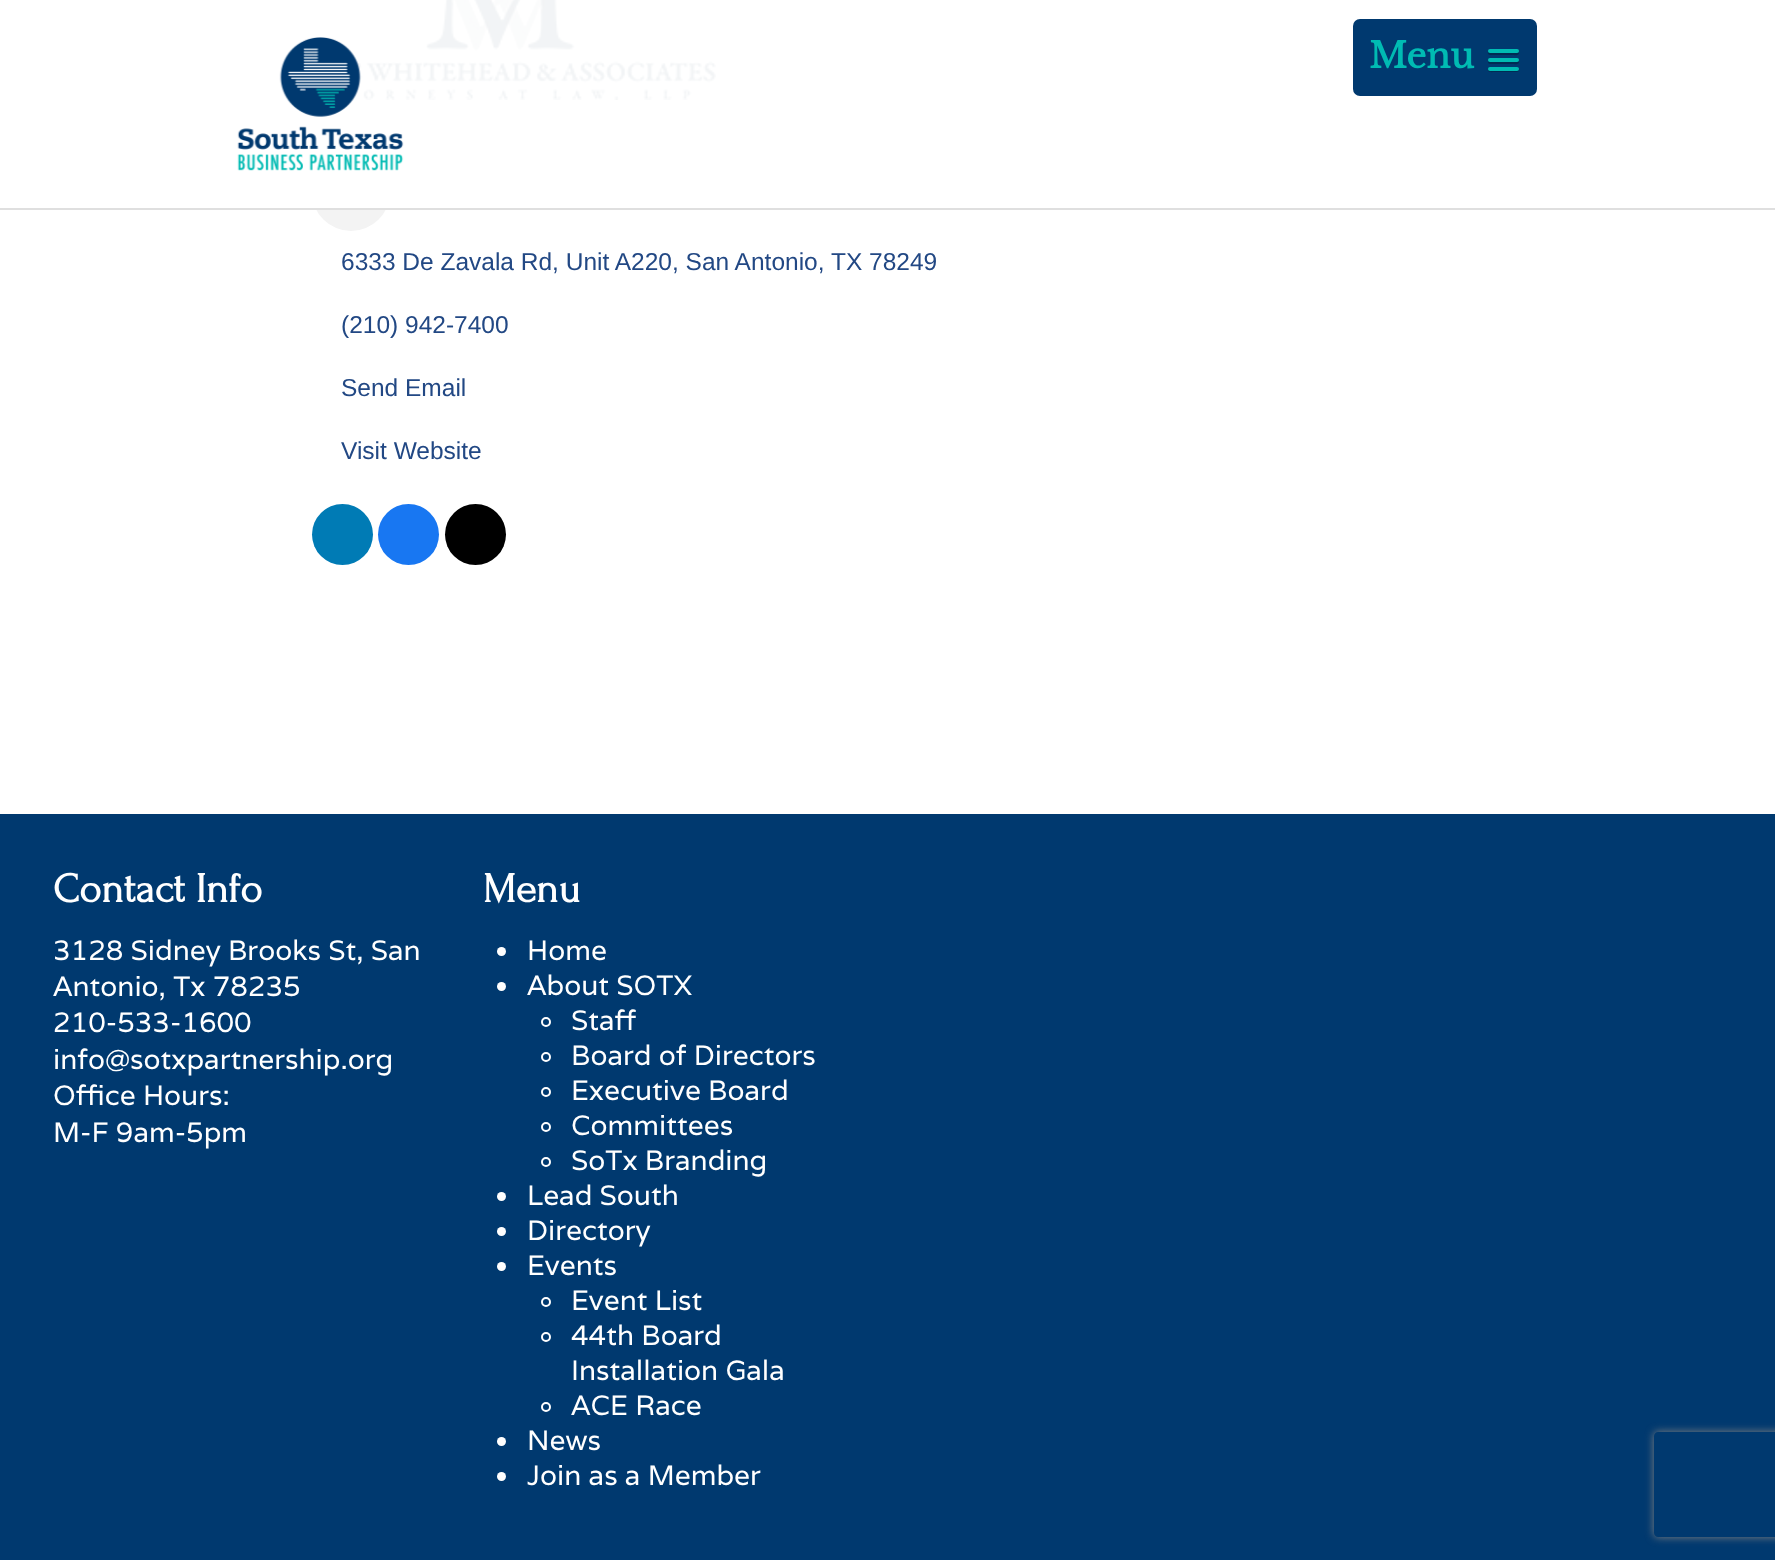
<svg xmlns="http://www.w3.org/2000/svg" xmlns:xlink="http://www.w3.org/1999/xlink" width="1775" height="1560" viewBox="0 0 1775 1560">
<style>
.cls-1{font:bold 35px Libre Baskerville;fill:#00bbb3}
.cls-2{font:24.5px Liberation Sans;fill:#224884}
.cls-3{font:bold 42px Forum;fill:#ffffff}
.cls-4{font:28px Varela;fill:#ffffff}
</style>
<defs>
<clipPath id="clip1"><path d="M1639 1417H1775V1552H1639ZM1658 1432H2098C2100 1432 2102 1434 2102 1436V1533C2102 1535 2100 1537 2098 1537H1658C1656 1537 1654 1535 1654 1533V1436C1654 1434 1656 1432 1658 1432Z" clip-rule="evenodd"/></clipPath>
</defs>
<rect width="100%" height="100%" fill="#ffffff"/>
<image xlink:href="image1.png" x="285" y="0" width="431" height="100"/>
<rect fill="#f3f3f3" x="312" y="152" width="78" height="79" rx="39"/>
<rect fill="#ffffff" fill-opacity="0.95" x="285" y="0" width="431" height="208"/>
<rect fill="#dfdfdf" x="0" y="208" width="1775" height="2"/>
<image xlink:href="image0.png" x="237" y="37" width="167" height="134"/>
<rect fill="#00396f" x="1353" y="19" width="184" height="77" rx="7"/>
<path fill="#002b53" d="M1488 52C1486.5 56 1493.5 55 1494.5 55H1512.5C1513.5 55 1518.5 56 1519 53.5L1518.5 52L1517.5 52.5C1515 53 1489 53 1488 52Z"/>
<rect fill="#00bbb3" x="1488" y="49" width="31" height="4" rx="2"/>
<path fill="#002b53" d="M1488.5 61C1486 65 1494 64 1494.5 64H1512.5C1513.5 64 1518.5 65 1519 62.5C1519 62 1519 61 1518.5 60.5L1517.5 61C1515 61.5 1489 61.5 1488.5 61Z"/>
<rect fill="#00bbb3" x="1488" y="58" width="31" height="4" rx="2"/>
<path fill="#002b53" d="M1488 69.5C1487 73 1493.5 72 1494.5 72H1512.5C1513.5 72 1520.5 73 1519 69L1517.5 70H1489Z"/>
<rect fill="#00bbb3" x="1488" y="67" width="31" height="4" rx="2"/>
<circle fill="#007bb5" cx="342.5" cy="534.5" r="30.5"/>
<circle fill="#1877f2" cx="408.5" cy="534.5" r="30.5"/>
<circle fill="#000000" cx="475.5" cy="534.5" r="30.5"/>
<rect fill="#00396f" x="0" y="814" width="1775" height="746"/>
<circle fill="#ffffff" cx="501.5" cy="951.5" r="4.5"/>
<circle fill="#ffffff" cx="501.5" cy="986.5" r="4.5"/>
<circle fill="none" stroke="#ffffff" stroke-width="2" cx="546" cy="1022" r="4"/>
<circle fill="none" stroke="#ffffff" stroke-width="2" cx="546" cy="1057" r="4"/>
<circle fill="none" stroke="#ffffff" stroke-width="2" cx="546" cy="1092" r="4"/>
<circle fill="none" stroke="#ffffff" stroke-width="2" cx="546" cy="1127" r="4"/>
<circle fill="none" stroke="#ffffff" stroke-width="2" cx="546" cy="1162" r="4"/>
<circle fill="#ffffff" cx="501.5" cy="1196.5" r="4.5"/>
<circle fill="#ffffff" cx="501.5" cy="1231.5" r="4.5"/>
<circle fill="#ffffff" cx="501.5" cy="1266.5" r="4.5"/>
<circle fill="none" stroke="#ffffff" stroke-width="2" cx="546" cy="1302" r="4"/>
<circle fill="none" stroke="#ffffff" stroke-width="2" cx="546" cy="1337" r="4"/>
<circle fill="none" stroke="#ffffff" stroke-width="2" cx="546" cy="1407" r="4"/>
<circle fill="#ffffff" cx="501.5" cy="1441.5" r="4.5"/>
<circle fill="#ffffff" cx="501.5" cy="1476.5" r="4.5"/>
<g clip-path="url(#clip1)">
<rect fill="#808080" filter="blur(4.5px)" x="1654" y="1432" width="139" height="105" rx="4"/>
</g>
<text class="cls-1" x="1369" y="68">Menu</text>
<text class="cls-2" x="341" y="270">6333 De Zavala Rd, Unit A220, San Antonio,</text>
<text class="cls-2" x="831" y="270">TX 78249</text>
<text class="cls-2" x="341" y="333">(210) 942-7400</text>
<text class="cls-2" x="341" y="396">Send Email</text>
<text class="cls-2" x="341" y="459">Visit Website</text>
<text class="cls-3" x="53" y="902">Contact Info</text>
<text class="cls-4"><tspan x="53" y="960">3128 Sidney Brooks St, San</tspan><tspan x="53" y="996">Antonio, Tx 78235</tspan><tspan x="53" y="1032">210-533-1600</tspan><tspan x="53" y="1069">info@sotxpartnership.org</tspan><tspan x="53" y="1105">Office Hours:</tspan><tspan x="53" y="1142">M-F 9am-5pm</tspan></text>
<text class="cls-3" x="483" y="902">Menu</text>
<text class="cls-4"><tspan x="527" y="960">Home</tspan><tspan x="527" y="995">About SOTX</tspan></text>
<text class="cls-4"><tspan x="571" y="1030">Staff</tspan><tspan x="571" y="1065">Board of Directors</tspan><tspan x="571" y="1100">Executive Board</tspan><tspan x="571" y="1135">Committees</tspan><tspan x="571" y="1170">SoTx Branding</tspan></text>
<text class="cls-4"><tspan x="527" y="1205">Lead South</tspan><tspan x="527" y="1240">Directory</tspan><tspan x="527" y="1275">Events</tspan></text>
<text class="cls-4"><tspan x="571" y="1310">Event List</tspan><tspan x="571" y="1345">44th Board</tspan><tspan x="571" y="1380">Installation Gala</tspan><tspan x="571" y="1415">ACE Race</tspan></text>
<text class="cls-4"><tspan x="527" y="1450">News</tspan><tspan x="527" y="1485">Join as a Member</tspan></text>
</svg>
